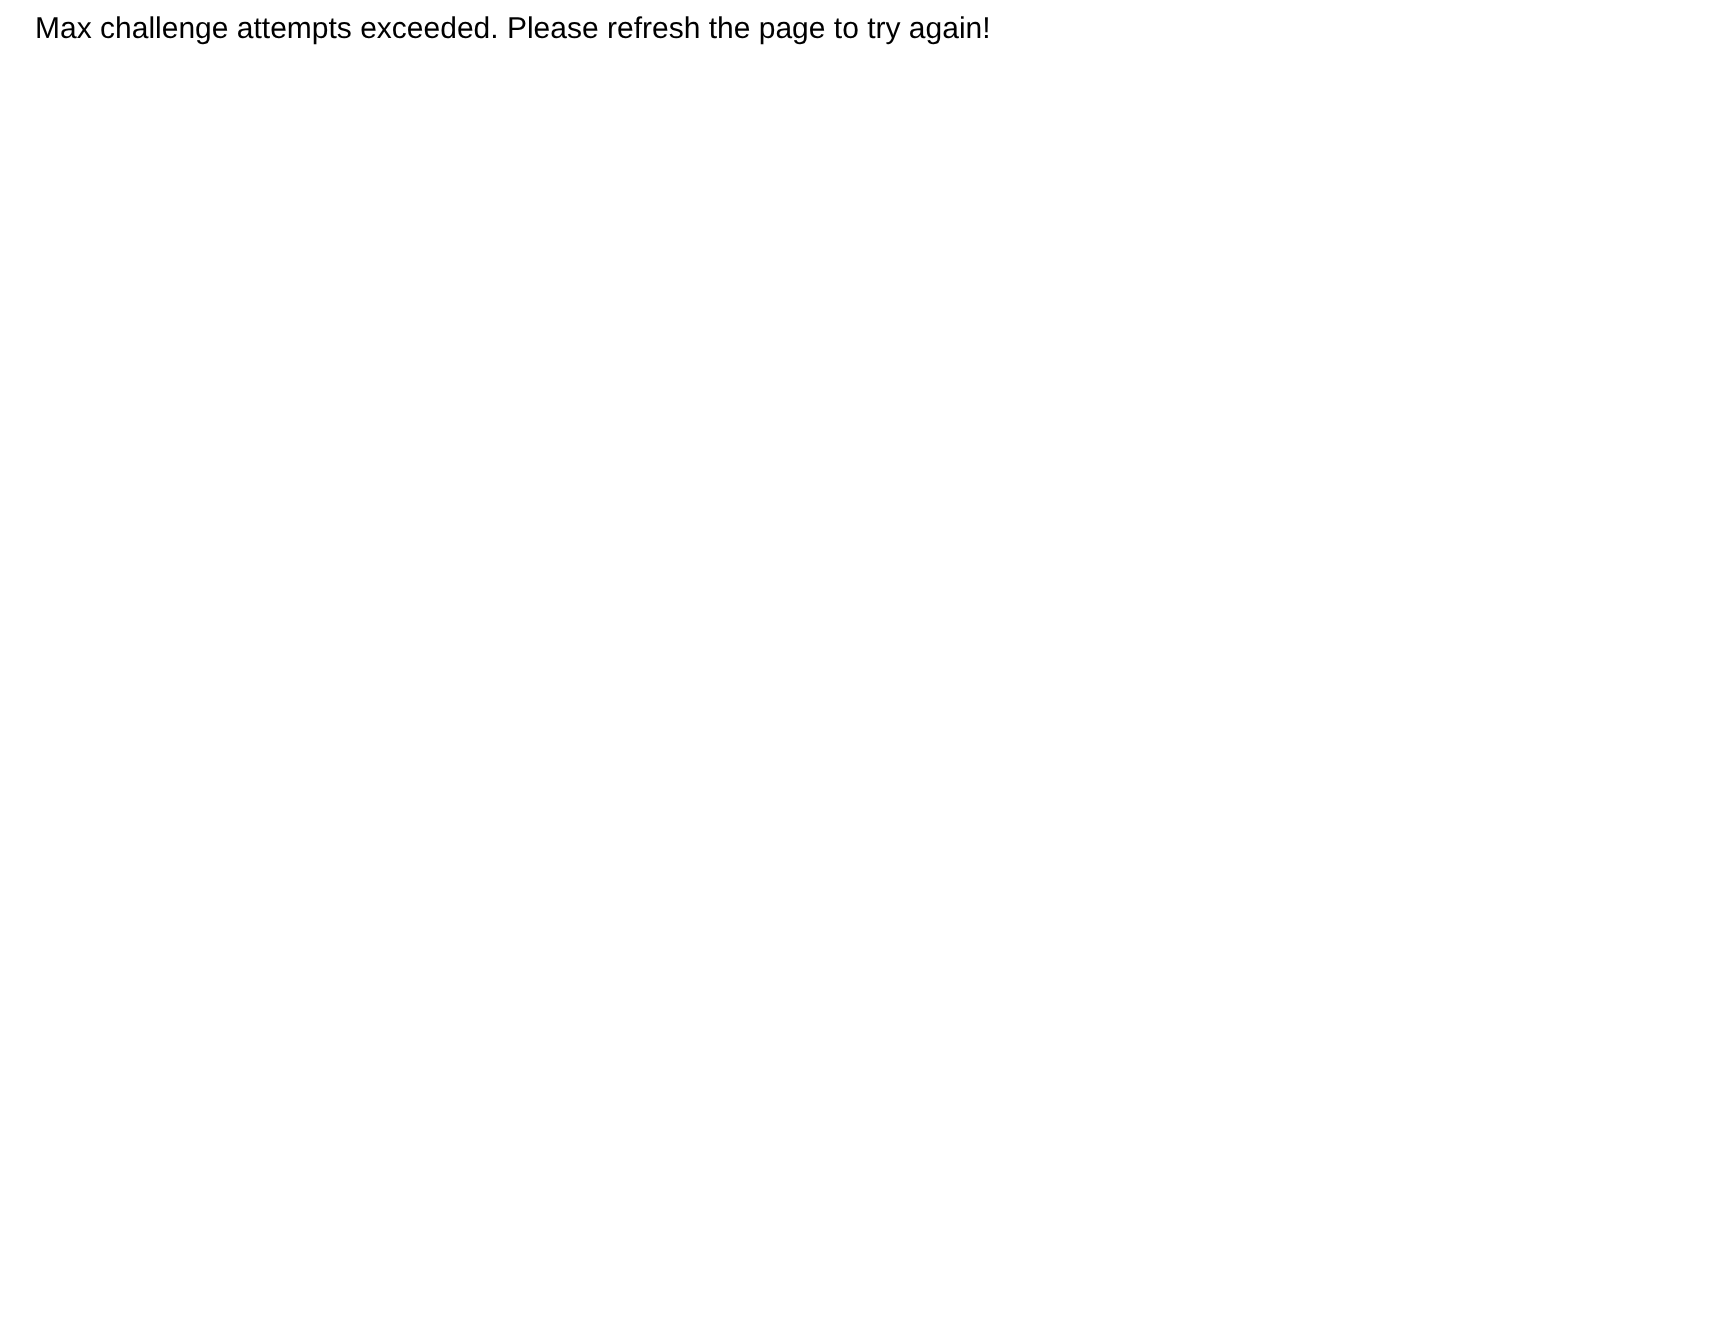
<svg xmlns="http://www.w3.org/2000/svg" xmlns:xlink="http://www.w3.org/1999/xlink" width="1736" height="1343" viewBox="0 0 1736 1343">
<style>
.cls-1{font:30px Liberation Sans;fill:#000000}
</style>
<rect width="100%" height="100%" fill="#ffffff"/>
<text class="cls-1" x="35" y="38">Max challenge attempts exceeded. Please refresh the page to try again!</text>
</svg>
